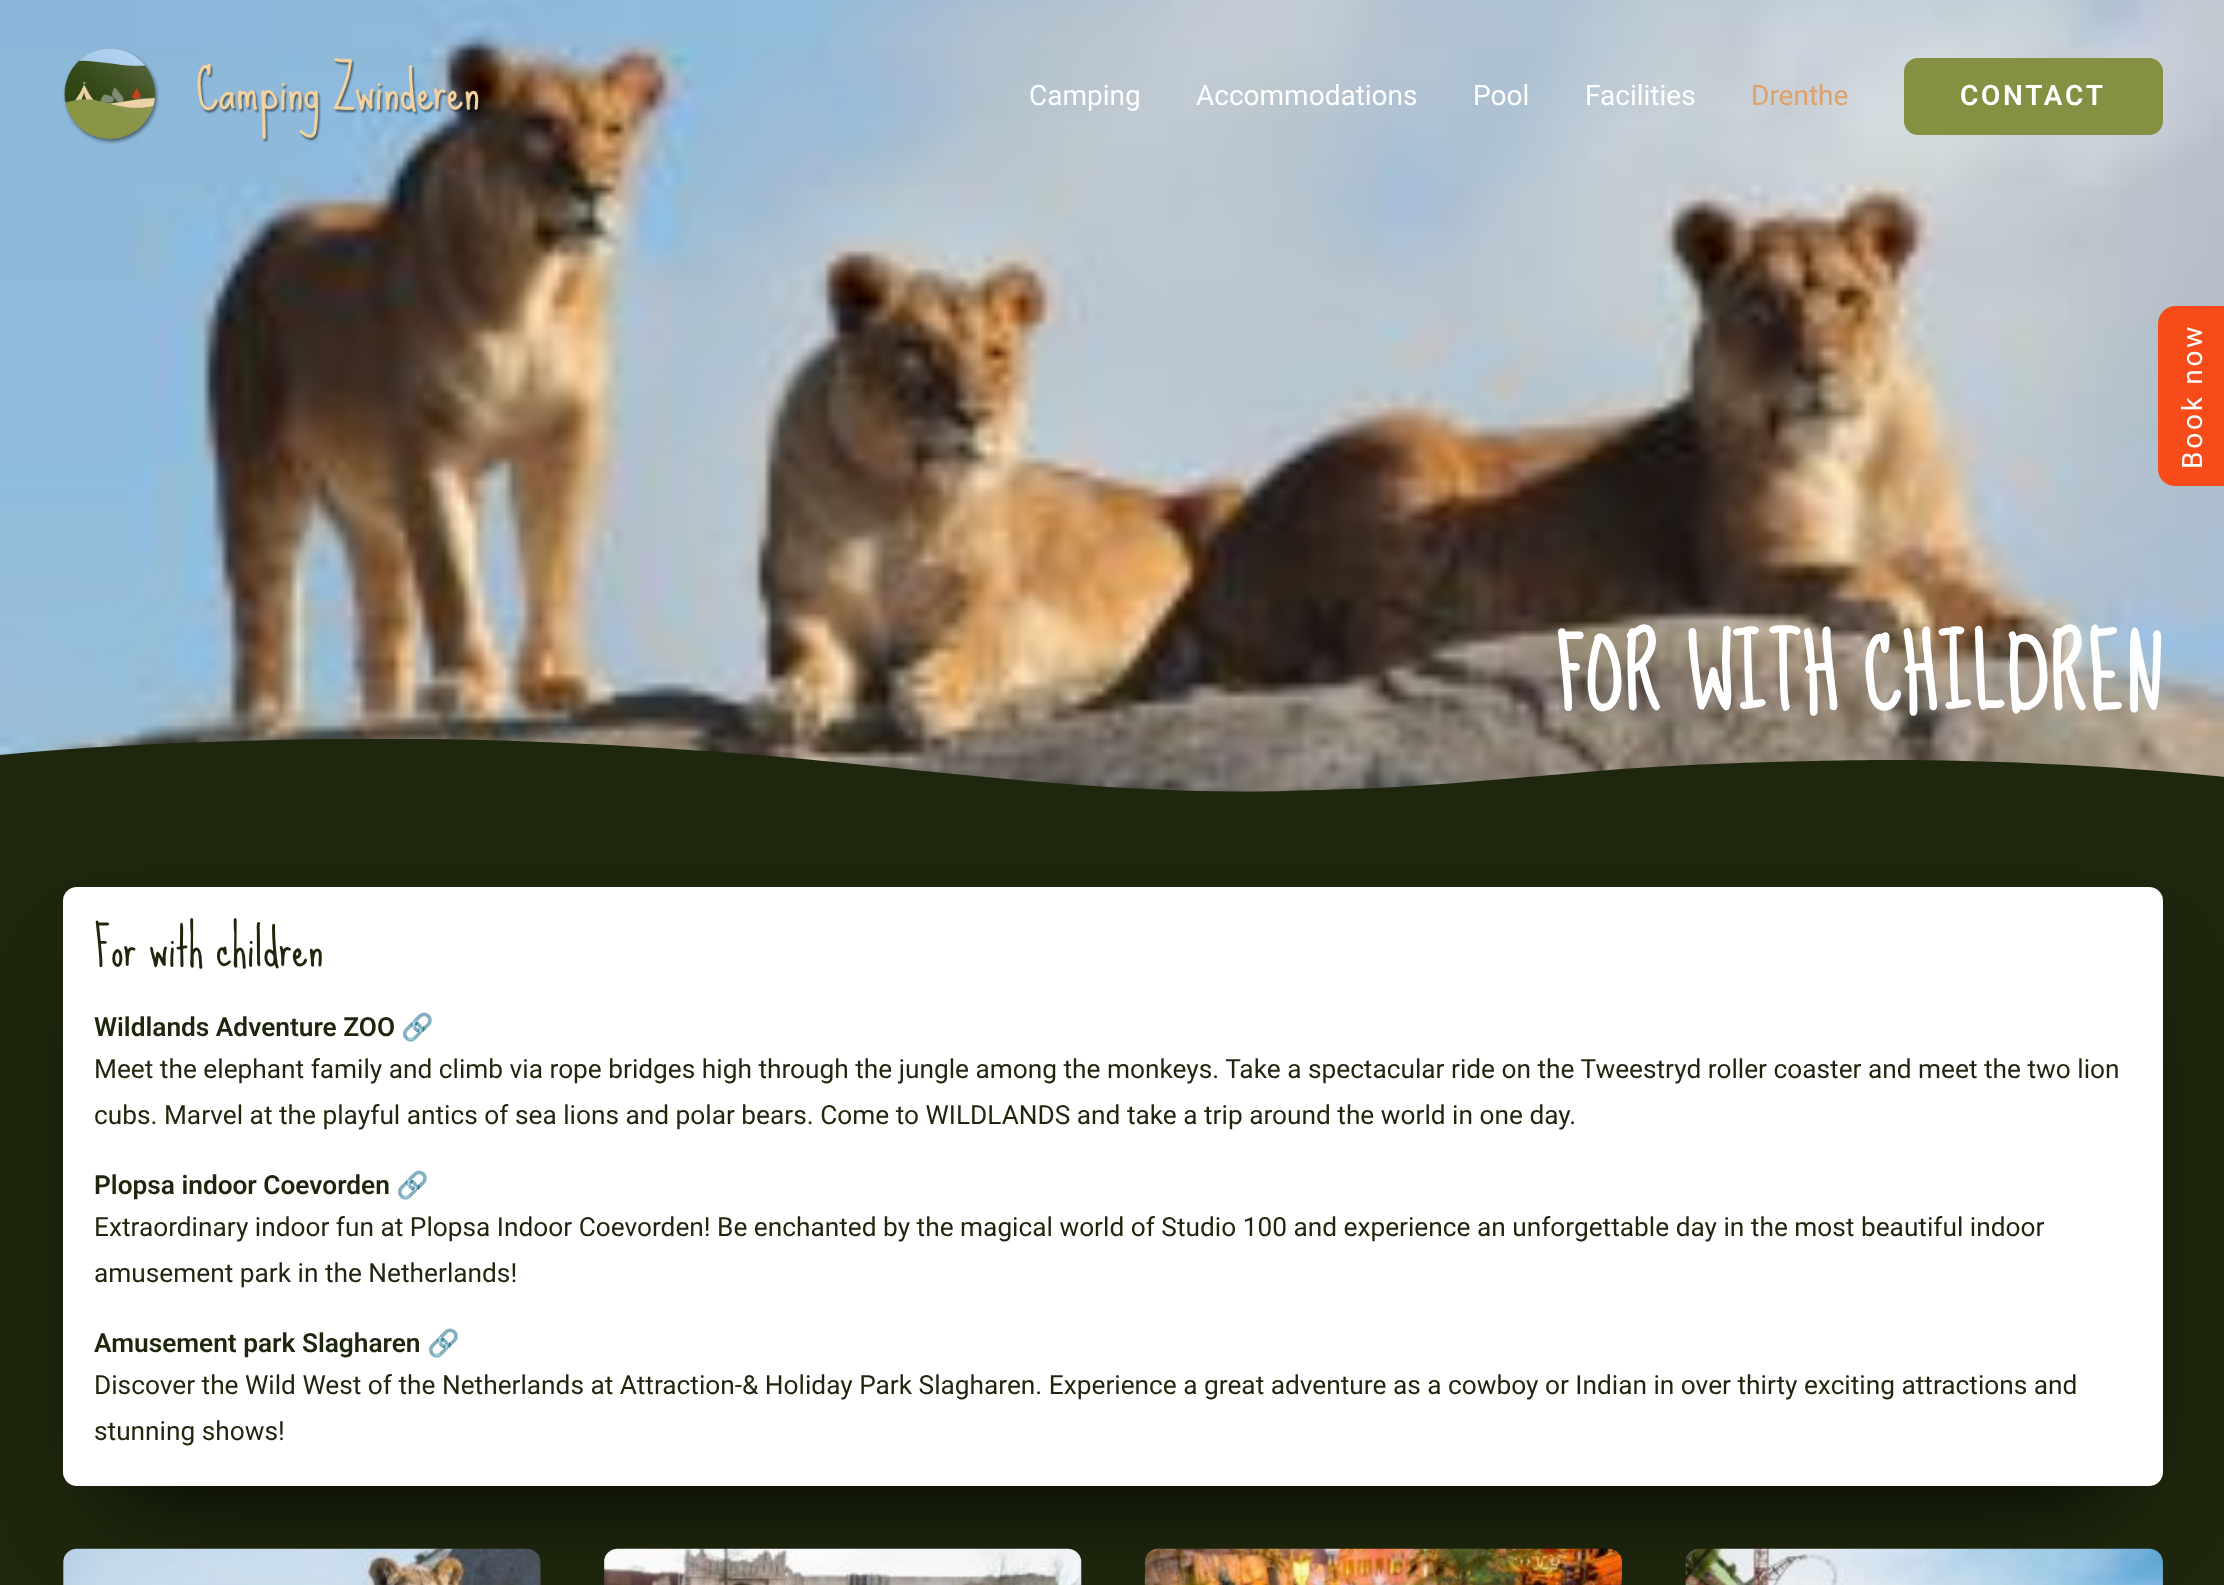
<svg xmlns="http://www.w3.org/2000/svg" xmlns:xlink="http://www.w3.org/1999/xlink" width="2224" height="1585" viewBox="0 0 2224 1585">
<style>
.cls-1{font:28px Roboto;fill:#ffffff}
.cls-2{font:28px Roboto;fill:#dea369}
.cls-3{font:600 28px Roboto;letter-spacing:2.75px;fill:#ffffff}
.cls-4{font:bold 87.5px Sue Ellen Francisco;letter-spacing:1.75px;fill:#ffffff}
.cls-5{font:50.75px Sue Ellen Francisco;fill:#1e270d}
.cls-6{font:600 26.25px Roboto;fill:#1e270d}
.cls-7{font:bold 26.25px Noto Color Emoji;fill:#1e270d}
.cls-8{font:26.25px Roboto;fill:#1e270d}
.cls-9{font:28px Roboto;letter-spacing:2.75px;fill:#ffffff}
</style>
<defs>
<clipPath id="clip1"><rect x="0" y="739" width="2224" height="54"/></clipPath>
</defs>
<rect width="100%" height="100%" fill="#1e270d"/>
<image xlink:href="image1.png" x="0" y="0" width="2224" height="792"/>
<image xlink:href="image0.png" x="63" y="48" width="418" height="97"/>
<rect fill="#859042" stroke="#859042" stroke-width="2" x="1905" y="59" width="257" height="75" rx="13"/>
<g clip-path="url(#clip1)">
<path fill="#1e270d" d="M1287 791C1097 796 909 766 720 752C573 741 426 736 279 740C186 742 93 746 0 755V794H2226V777C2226 777 2066 759 1873 760C1786 761 1667 764 1575 773C1528 777 1459 783 1398 787C1337 790 1310 790 1287 791Z"/>
</g>
<rect fill="#000000" filter="blur(52.5px)" x="116" y="992" width="1995" height="494"/>
<rect fill="#ffffff" x="63" y="887" width="2100" height="599" rx="14"/>
<image xlink:href="image2.png" x="63" y="1548" width="478" height="37"/>
<image xlink:href="image3.png" x="604" y="1548" width="478" height="37"/>
<image xlink:href="image4.png" x="1144" y="1548" width="478" height="37"/>
<image xlink:href="image5.png" x="1685" y="1548" width="478" height="37"/>
<path fill="#f74b19" d="M2158 469V324C2158 314 2166 306 2175 306H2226V486H2175C2166 486 2158 479 2158 469Z"/>
<text class="cls-1" x="1029" y="105">Camping</text>
<text class="cls-1" x="1196" y="105">Accommodations</text>
<text class="cls-1" x="1473" y="105">Pool</text>
<text class="cls-1" x="1585" y="105">Facilities</text>
<text class="cls-2" x="1751" y="105">Drenthe</text>
<text class="cls-3" x="1960" y="105">CONTACT</text>
<text class="cls-4" x="1555" y="709">FOR WITH CHILDREN</text>
<text class="cls-5" x="94" y="966">For with children</text>
<text class="cls-6" x="94" y="1036">Wildlands Adventure ZOO</text>
<text class="cls-7" x="401" y="1036">🔗</text>
<text class="cls-8"><tspan x="94" y="1078">Meet the elephant family and climb via rope bridges high through the jungle among the monkeys. Take a spectacular ride on the Tweestryd roller coaster and meet the two lion</tspan><tspan x="94" y="1124">cubs. Marvel at the playful antics of sea lions and polar bears. Come to WILDLANDS and take a trip around the world in one day.</tspan></text>
<text class="cls-6" x="94" y="1194">Plopsa indoor Coevorden</text>
<text class="cls-7" x="396" y="1194">🔗</text>
<text class="cls-8"><tspan x="94" y="1236">Extraordinary indoor fun at Plopsa Indoor Coevorden! Be enchanted by the magical world of Studio 100 and experience an unforgettable day in the most beautiful indoor</tspan><tspan x="94" y="1282">amusement park in the Netherlands!</tspan></text>
<text class="cls-6" x="94" y="1352">Amusement park Slagharen</text>
<text class="cls-7" x="427" y="1352">🔗</text>
<text class="cls-8"><tspan x="94" y="1394">Discover the Wild West of the Netherlands at Attraction-&amp; Holiday Park Slagharen. Experience a great adventure as a cowboy or Indian in over thirty exciting attractions and</tspan><tspan x="94" y="1440">stunning shows!</tspan></text>
<text class="cls-9" x="2202" y="469" transform="rotate(-90 2202 469)">Book now</text>
</svg>
